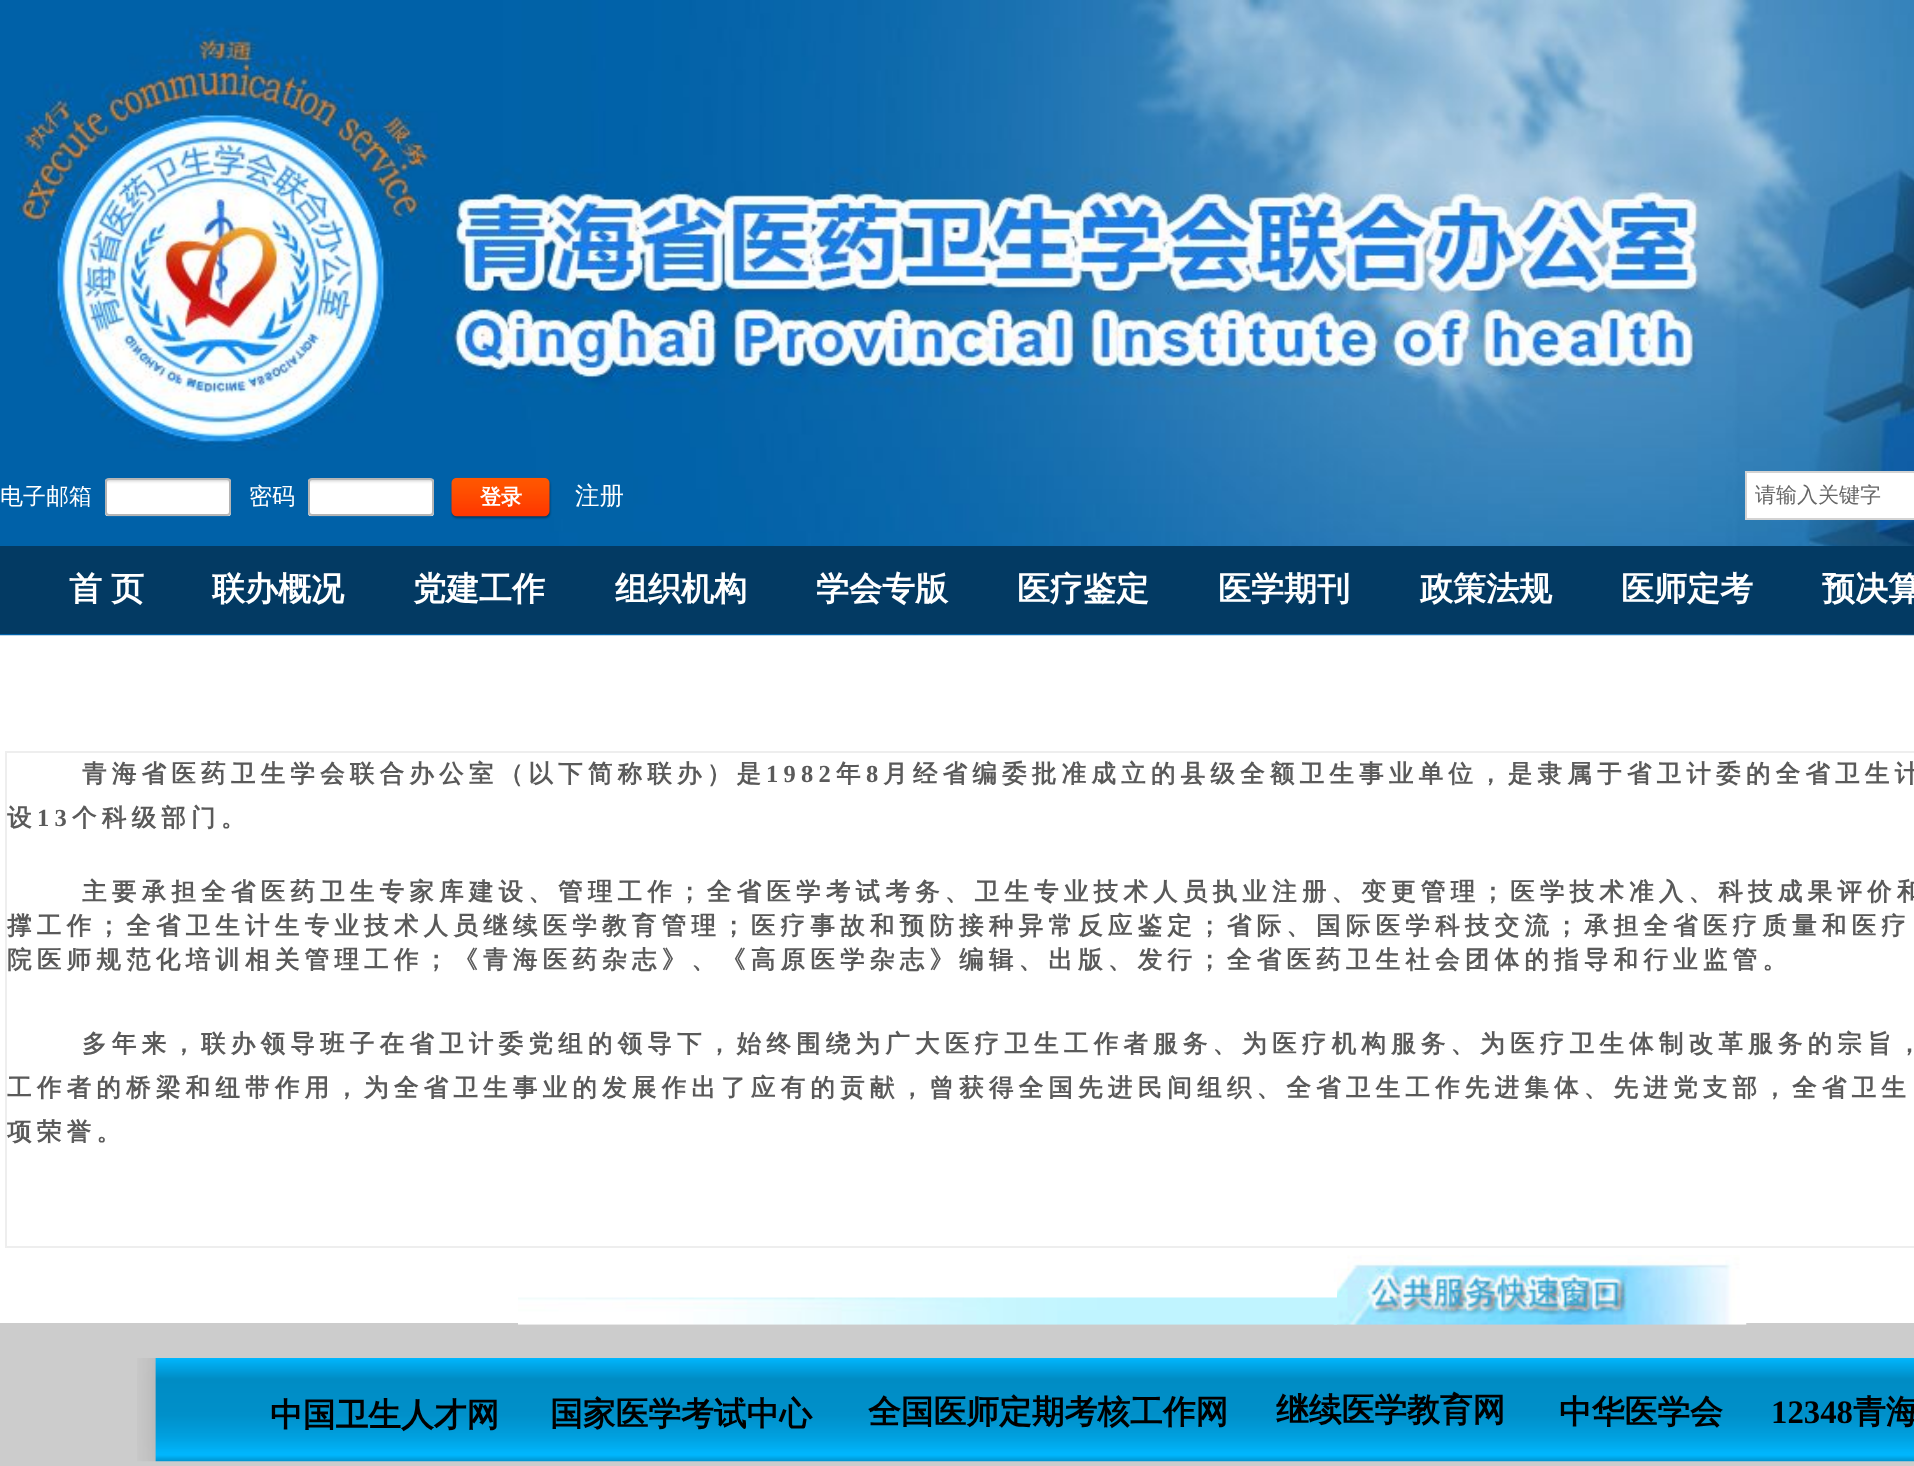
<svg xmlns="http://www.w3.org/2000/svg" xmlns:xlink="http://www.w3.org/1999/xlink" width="1914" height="1466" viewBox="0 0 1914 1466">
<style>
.cls-1{font:500 23px WenQuanYi Zen Hei;fill:#ffffff}
.cls-2{font:bold 21px WenQuanYi Zen Hei;fill:#ffffff}
.cls-3{font:500 24.5px WenQuanYi Zen Hei;fill:#ffffff}
.cls-4{font:500 21px WenQuanYi Zen Hei;fill:#666666}
.cls-5{font:bold 33px WenQuanYi Zen Hei;fill:#ffffff}
.cls-6{font:bold 24.5px WenQuanYi Zen Hei;letter-spacing:5.25px;fill:#5a5a5a}
.cls-7{font:bold 24.5px Liberation Serif;letter-spacing:5.25px;fill:#5a5a5a}
.cls-8{font:bold 32.75px WenQuanYi Zen Hei;fill:#000000}
.cls-9{font:bold 32.75px Liberation Serif;fill:#000000}
</style>
<rect width="100%" height="100%" fill="#ffffff"/>
<image xlink:href="image0.png" x="0" y="0" width="1914" height="636"/>
<image xlink:href="image1.png" x="105" y="479" width="126" height="38"/>
<rect fill="none" stroke="#b5b5b5" stroke-width="2" x="106" y="479" width="124" height="36" rx="3"/>
<image xlink:href="image1.png" x="308" y="479" width="126" height="38"/>
<rect fill="none" stroke="#b5b5b5" stroke-width="2" x="309" y="479" width="124" height="36" rx="3"/>
<rect fill="#000000" fill-opacity="0.4" filter="blur(1px)" x="452" y="480" width="98" height="38" rx="5"/>
<image xlink:href="image2.png" x="451" y="477" width="99" height="40"/>
<rect fill="#ffffff" stroke="#d3d3d3" stroke-width="2" x="1746" y="472" width="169" height="47"/>
<rect fill="#033a63" x="0" y="546" width="1914" height="88"/>
<rect fill="none" stroke="#eeeeee" stroke-width="2" x="6" y="752" width="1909" height="495"/>
<rect fill="#cccccc" x="0" y="1323" width="1914" height="143"/>
<image xlink:href="image4.png" x="1333" y="1255" width="414" height="70"/>
<image xlink:href="image3.png" x="518" y="1282" width="819" height="43"/>
<image xlink:href="image5.png" x="137" y="1358" width="1777" height="104"/>
<text class="cls-1" x="0" y="504">电子邮箱</text>
<text class="cls-1" x="249" y="504">密码</text>
<text class="cls-2" x="480" y="504">登录</text>
<text class="cls-3" x="575" y="504">注册</text>
<text class="cls-4" x="1755" y="502">请输入关键字</text>
<text class="cls-5" x="69" y="600">首</text>
<text class="cls-5" x="111" y="600">页</text>
<text class="cls-5" x="212" y="600">联办概况</text>
<text class="cls-5" x="413" y="600">党建工作</text>
<text class="cls-5" x="615" y="600">组织机构</text>
<text class="cls-5" x="816" y="600">学会专版</text>
<text class="cls-5" x="1017" y="600">医疗鉴定</text>
<text class="cls-5" x="1218" y="600">医学期刊</text>
<text class="cls-5" x="1420" y="600">政策法规</text>
<text class="cls-5" x="1621" y="600">医师定考</text>
<text class="cls-5" x="1822" y="600">预决算</text>
<text class="cls-6" x="82" y="782">青海省医药卫生学会联合办公室（以下简称联办）是</text>
<text class="cls-7" x="766" y="782">1982</text>
<text class="cls-6" x="836" y="782">年</text>
<text class="cls-7" x="866" y="782">8</text>
<text class="cls-6" x="883" y="782">月经省编委批准成立的县级全额卫生事业单位，是隶属于省卫计委的全省卫生计</text>
<text class="cls-6" x="7" y="826">设</text>
<text class="cls-7" x="37" y="826">13</text>
<text class="cls-6" x="72" y="826">个科级部门。</text>
<text class="cls-6" x="82" y="900">主要承担全省医药卫生专家库建设、管理工作；全省医学考试考务、卫生专业技术人员执业注册、变更管理；医学技术准入、科技成果评价和</text>
<text class="cls-6"><tspan x="7" y="934">撑工作；全省卫生计生专业技术人员继续医学教育管理；医疗事故和预防接种异常反应鉴定；省际、国际医学科技交流；承担全省医疗质量和医疗</tspan><tspan x="7" y="968">院医师规范化培训相关管理工作；《青海医药杂志》、《高原医学杂志》编辑、出版、发行；全省医药卫生社会团体的指导和行业监管。</tspan></text>
<text class="cls-6" x="82" y="1052">多年来，联办领导班子在省卫计委党组的领导下，始终围绕为广大医疗卫生工作者服务、为医疗机构服务、为医疗卫生体制改革服务的宗旨，</text>
<text class="cls-6"><tspan x="7" y="1096">工作者的桥梁和纽带作用，为全省卫生事业的发展作出了应有的贡献，曾获得全国先进民间组织、全省卫生工作先进集体、先进党支部，全省卫生</tspan><tspan x="7" y="1140">项荣誉。</tspan></text>
<text class="cls-8" x="270" y="1426">中国卫生人才网</text>
<text class="cls-8" x="550" y="1425">国家医学考试中心</text>
<text class="cls-8" x="868" y="1423">全国医师定期考核工作网</text>
<text class="cls-8" x="1276" y="1421">继续医学教育网</text>
<text class="cls-8" x="1559" y="1423">中华医学会</text>
<text class="cls-9" x="1771" y="1423">12348</text>
<text class="cls-8" x="1853" y="1423">青海</text>
</svg>
